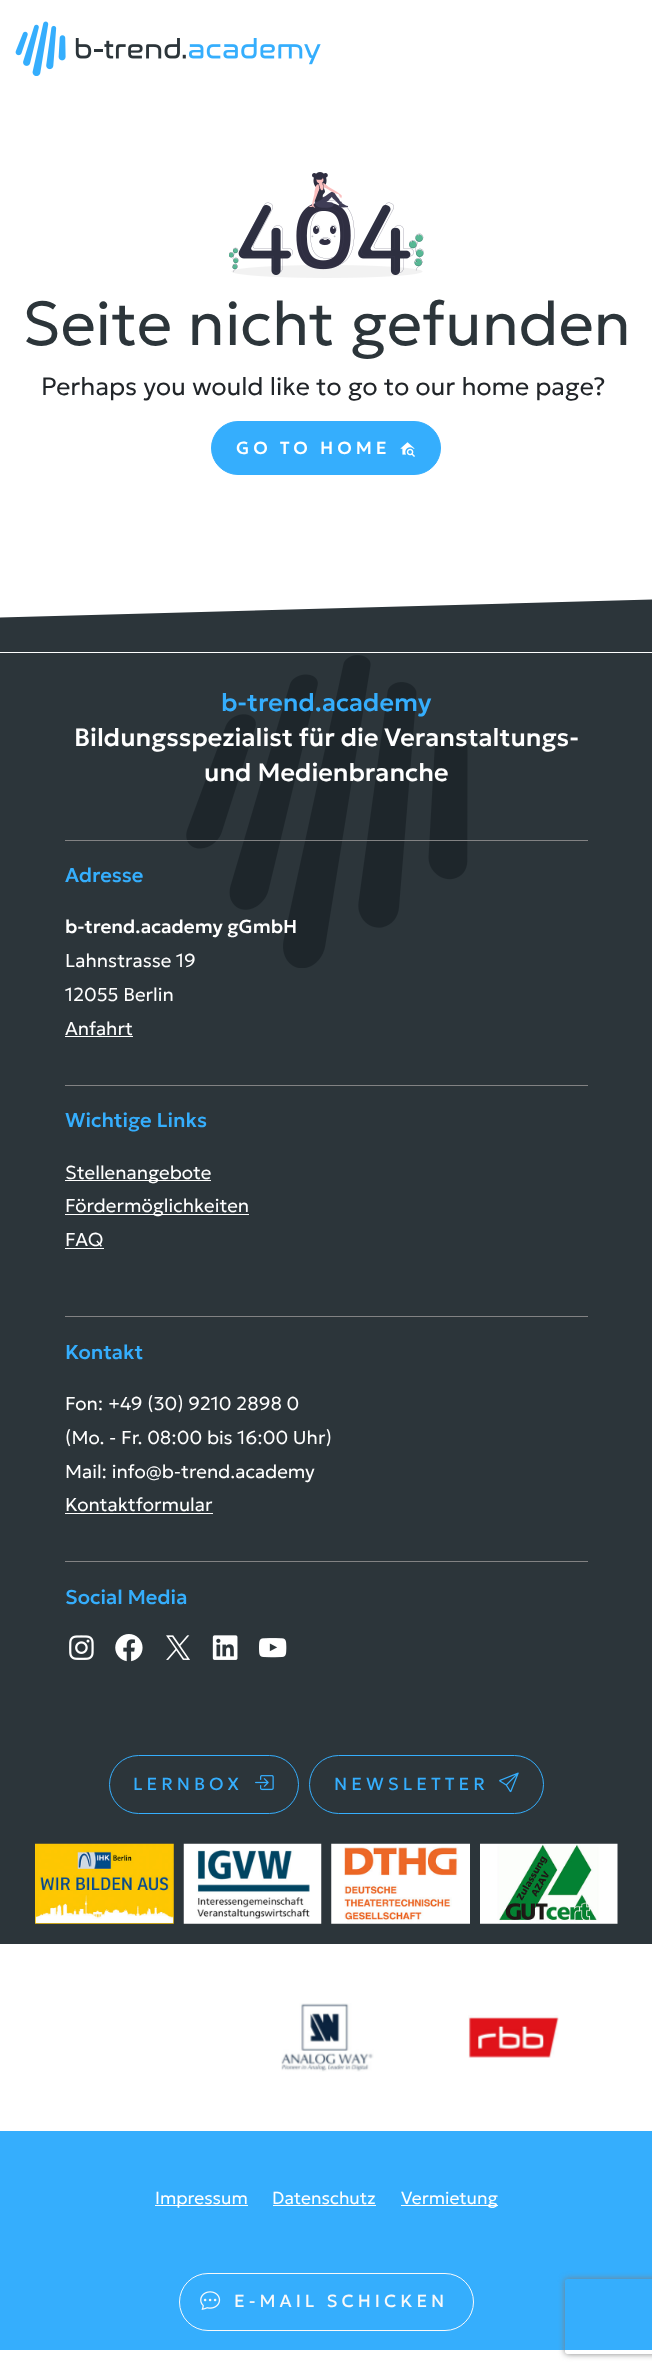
<svg xmlns="http://www.w3.org/2000/svg" xmlns:xlink="http://www.w3.org/1999/xlink" width="652" height="2371" viewBox="0 0 652 2371">
<style>
.cls-1{font:100 61.9px Geologica;fill:#2c353a}
.cls-2{font:100 25px Geologica;fill:#212529}
.cls-3{font:100 17.5px 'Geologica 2';letter-spacing:4px;fill:#ffffff}
.cls-4{font:100 25px 'Geologica 2';fill:#35aefd}
.cls-5{font:100 25px 'Geologica 2';fill:#ffffff}
.cls-6{font:100 20px 'Geologica 2';fill:#35aefd}
.cls-7{font:100 18.75px 'Geologica 2';fill:#ffffff}
.cls-8{font:100 18.75px Geologica;fill:#ffffff}
.cls-9{font:100 17.5px 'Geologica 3';letter-spacing:4px;fill:#35aefd}
.cls-10{font:100 17.5px Geologica;fill:#ffffff}
.cls-11{font:100 17.5px 'Geologica 3';letter-spacing:4px;fill:#f8f9fa}
</style>
<defs>
<clipPath id="clip1"><path d="M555 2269H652V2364H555ZM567.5 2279H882.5C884 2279 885 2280 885 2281.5V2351.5C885 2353 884 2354 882.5 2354H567.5C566 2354 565 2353 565 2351.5V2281.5C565 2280 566 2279 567.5 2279Z" clip-rule="evenodd"/></clipPath>
</defs>
<rect width="100%" height="100%" fill="#ffffff"/>
<image xlink:href="image0.png" x="15" y="21" width="306" height="55"/>
<image xlink:href="image1.png" x="229" y="172" width="195" height="106"/>
<rect fill="#35aefd" stroke="#35aefd" x="211.5" y="421.5" width="229" height="53" rx="26.5"/>
<image xlink:href="image2.png" x="400" y="442" width="15" height="15"/>
<rect fill="#2c353a" x="0" y="653" width="652" height="1291"/>
<path fill="#2c353a" d="M-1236 652L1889 565V652Z"/>
<image xlink:href="image3.png" x="186" y="655" width="282" height="313"/>
<rect fill="#828283" x="65" y="840" width="523" height="1"/>
<rect fill="#ffffff" x="65" y="1036" width="68" height="1"/>
<rect fill="#828283" x="65" y="1085" width="523" height="1"/>
<rect fill="#ffffff" x="65" y="1180" width="146" height="1"/>
<rect fill="#ffffff" x="65" y="1214" width="184" height="1"/>
<rect fill="#ffffff" x="65" y="1248" width="39" height="1"/>
<rect fill="#828283" x="65" y="1316" width="523" height="1"/>
<rect fill="#ffffff" x="65" y="1513" width="148" height="1"/>
<rect fill="#828283" x="65" y="1561" width="523" height="1"/>
<image xlink:href="image4.png" x="69" y="1635" width="25" height="25"/>
<image xlink:href="image5.png" x="115" y="1634" width="28" height="28"/>
<image xlink:href="image6.png" x="166" y="1635" width="24" height="25"/>
<image xlink:href="image7.png" x="212" y="1635" width="26" height="25"/>
<image xlink:href="image8.png" x="259" y="1638" width="28" height="20"/>
<rect fill="none" stroke="#35aefd" x="109.5" y="1755.5" width="189" height="58" rx="29"/>
<image xlink:href="image9.png" x="255" y="1775" width="19" height="16"/>
<rect fill="none" stroke="#35aefd" x="309.5" y="1755.5" width="234" height="58" rx="29"/>
<image xlink:href="image10.png" x="499" y="1772" width="20" height="21"/>
<image xlink:href="image11.png" x="35" y="1843" width="139" height="81"/>
<image xlink:href="image12.png" x="183" y="1843" width="139" height="81"/>
<image xlink:href="image13.png" x="331" y="1843" width="139" height="81"/>
<image xlink:href="image14.png" x="480" y="1843" width="138" height="81"/>
<image xlink:href="image15.png" x="281" y="2003" width="93" height="69"/>
<image xlink:href="image16.png" x="468" y="2015" width="91" height="43"/>
<rect fill="#35aefd" x="0" y="2131" width="652" height="219"/>
<rect fill="#ffffff" x="155" y="2205" width="93" height="1"/>
<rect fill="#ffffff" x="273" y="2205" width="103" height="1"/>
<rect fill="#ffffff" x="401" y="2205" width="97" height="1"/>
<rect fill="none" stroke="#f8f9fa" x="179.5" y="2273.5" width="294" height="57" rx="28.5"/>
<image xlink:href="image17.png" x="200" y="2291" width="21" height="19"/>
<g clip-path="url(#clip1)">
<rect fill="#808080" filter="blur(3px)" x="565" y="2279" width="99" height="75" rx="2.5"/>
</g>
<text class="cls-1" x="22" y="345">Seite nicht gefunden</text>
<text class="cls-2" x="41" y="395">Perhaps you would like to go to our home page?</text>
<text class="cls-3" x="236" y="454">GO TO HOME</text>
<text class="cls-4" x="221" y="711">b-trend.academy</text>
<text class="cls-5" x="74" y="746">Bildungsspezialist für die Veranstaltungs-</text>
<text class="cls-5" x="204" y="781">und Medienbranche</text>
<text class="cls-6" x="65" y="882">Adresse</text>
<text class="cls-7" x="65" y="933">b-trend.academy gGmbH</text>
<text class="cls-8"><tspan x="65" y="967">Lahnstrasse 19</tspan><tspan x="65" y="1001">12055 Berlin</tspan><tspan x="65" y="1035">Anfahrt</tspan></text>
<text class="cls-6" x="65" y="1127">Wichtige Links</text>
<text class="cls-8"><tspan x="65" y="1179">Stellenangebote</tspan><tspan x="65" y="1212">Fördermöglichkeiten</tspan><tspan x="65" y="1246">FAQ</tspan></text>
<text class="cls-6" x="65" y="1359">Kontakt</text>
<text class="cls-8"><tspan x="65" y="1410">Fon: +49 (30) 9210 2898 0</tspan><tspan x="65" y="1444">(Mo. - Fr. 08:00 bis 16:00 Uhr)</tspan><tspan x="65" y="1478">Mail: info@b-trend.academy</tspan><tspan x="65" y="1511">Kontaktformular</tspan></text>
<text class="cls-6" x="65" y="1604">Social Media</text>
<text class="cls-9" x="133" y="1790">LERNBOX</text>
<text class="cls-9" x="334" y="1790">NEWSLETTER</text>
<text class="cls-10" x="155" y="2204">Impressum</text>
<text class="cls-10" x="272" y="2204">Datenschutz</text>
<text class="cls-10" x="401" y="2204">Vermietung</text>
<text class="cls-11" x="234" y="2307">E-MAIL SCHICKEN</text>
</svg>
